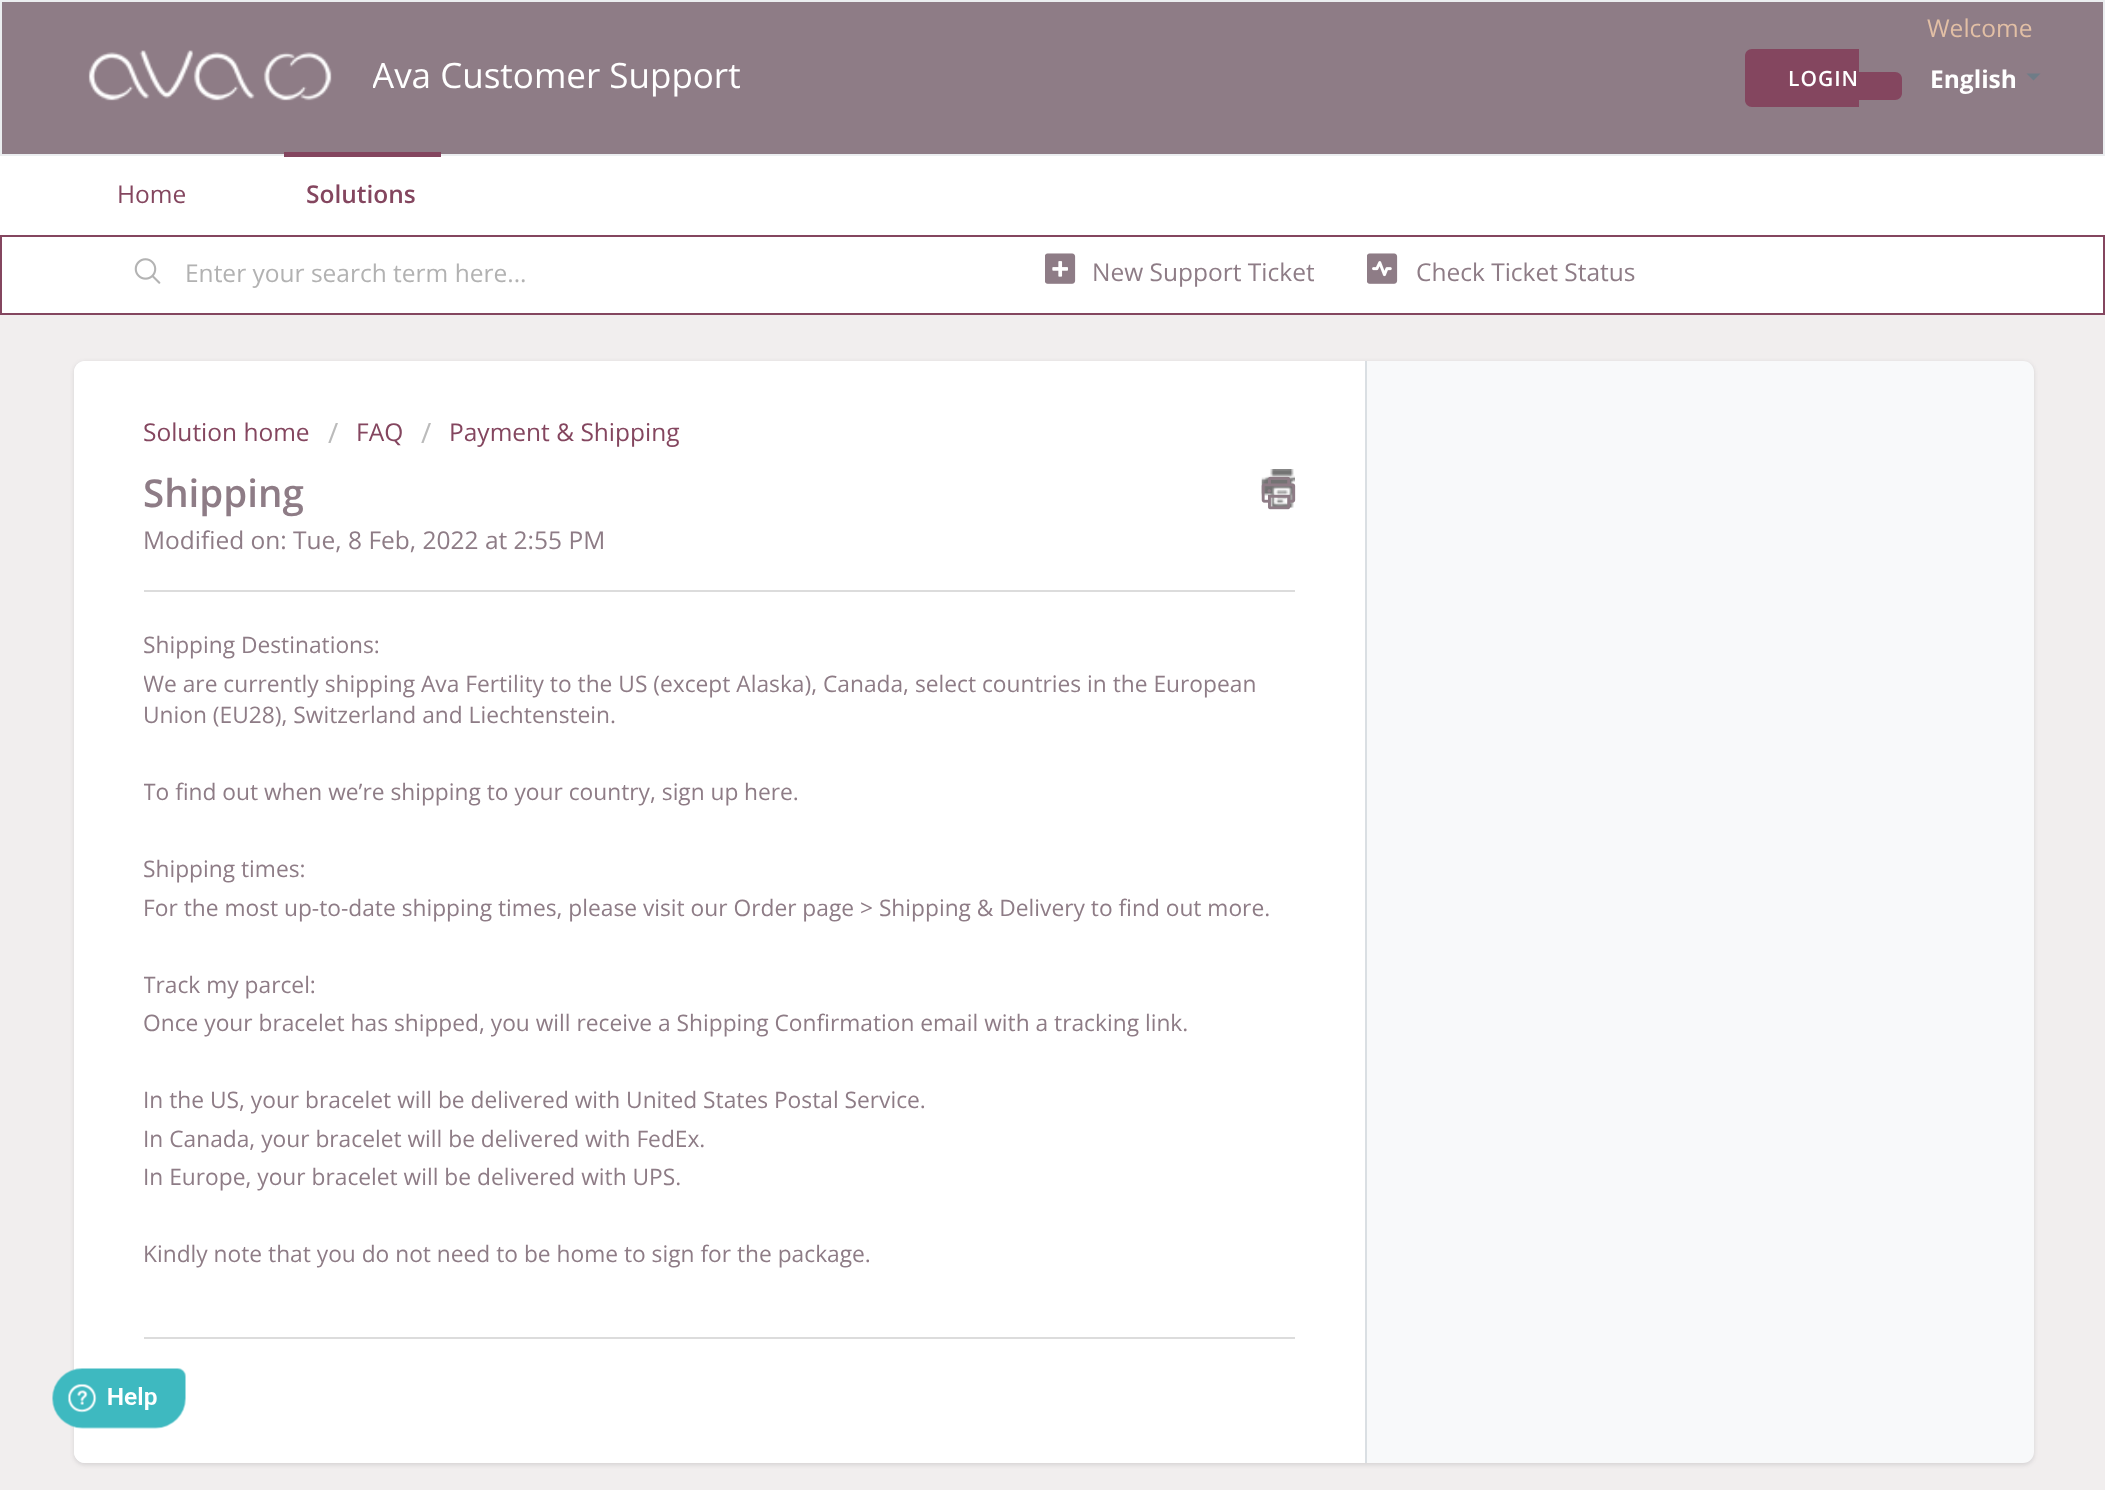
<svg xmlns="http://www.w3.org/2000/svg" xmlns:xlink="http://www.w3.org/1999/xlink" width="2105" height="1490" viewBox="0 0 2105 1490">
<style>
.cls-1{font:35px Open Sans;fill:#ffffff}
.cls-2{font:24.5px Open Sans;fill:#e2bfa5}
.cls-3{font:600 21px Open Sans;letter-spacing:1px;fill:#ffffff}
.cls-4{font:bold 24.5px Open Sans;fill:#ffffff}
.cls-5{font:24.5px Open Sans;fill:#84465f}
.cls-6{font:600 24.5px Open Sans;fill:#84465f}
.cls-7{font:24.5px Open Sans;fill:#b2b2b2}
.cls-8{font:24.5px Open Sans;fill:#8e7c86}
.cls-9{font:28px Open Sans;fill:#bbbbbb}
.cls-10{font:600 38.5px Open Sans;fill:#8e7c86}
.cls-11{font:22.75px Open Sans;fill:#8e7c86}
</style>
<defs>
<clipPath id="clip1"><rect x="373" y="37" width="877" height="77"/></clipPath>
<clipPath id="clip2"><rect x="1045" y="240" width="269" height="61"/></clipPath>
<clipPath id="clip3"><rect x="144" y="621" width="1151" height="686"/></clipPath>
</defs>
<rect width="100%" height="100%" fill="#f1eeee"/>
<rect fill="#8e7c86" stroke="#ebeef0" stroke-width="2" x="1" y="1" width="2103" height="154"/>
<image xlink:href="image0.png" x="88" y="50" width="244" height="51"/>
<path fill="#84465f" d="M1752 49H1859V107H1752C1748 107 1745 104 1745 100V56C1745 52 1748 49 1752 49Z"/>
<path fill="#84465f" d="M1859 72H1895C1899 72 1902 75 1902 79V93C1902 97 1899 100 1895 100H1859Z"/>
<path fill="#6f7c87" d="M2026.5 73.5H2040.5L2033.5 80.5Z"/>
<rect fill="#ffffff" x="0" y="156" width="2105" height="79"/>
<rect fill="#84465f" x="284" y="152" width="157" height="5"/>
<rect fill="#ffffff" stroke="#84465f" stroke-width="2" x="1" y="236" width="2103" height="78"/>
<image xlink:href="image1.png" x="134" y="258" width="27" height="26"/>
<image xlink:href="image2.png" x="1045" y="253" width="31" height="31"/>
<image xlink:href="image3.png" x="1367" y="253" width="31" height="31"/>
<rect fill="#3f3f44" fill-opacity="0.15" filter="blur(2px)" x="74" y="362" width="1960" height="1103" rx="11"/>
<rect fill="#f8f9fa" x="74" y="361" width="1960" height="1102" rx="11"/>
<path fill="#ffffff" d="M85 361H1367V1463H85C79 1463 74 1458 74 1452V372C74 366 79 361 85 361Z"/>
<rect fill="#dadfe3" x="1365" y="361" width="2" height="1102"/>
<image xlink:href="image4.png" x="1261" y="469" width="34" height="39"/>
<image xlink:href="image5.png" x="1261" y="476" width="35" height="34"/>
<rect fill="#dcdcdc" x="144" y="590" width="1151" height="2"/>
<rect fill="#dcdcdc" x="144" y="1337" width="1151" height="2"/>
<image xlink:href="image6.png" x="52" y="1368" width="134" height="61"/>
<g clip-path="url(#clip1)">
<text class="cls-1" x="372" y="88">Ava Customer Support</text>
</g>
<text class="cls-2" x="1927" y="37">Welcome</text>
<text class="cls-3" x="1788" y="86">LOGIN</text>
<text class="cls-4" x="1930" y="88">English</text>
<text class="cls-5" x="117" y="203">Home</text>
<text class="cls-6" x="306" y="203">Solutions</text>
<text class="cls-7" x="185" y="282">Enter your search term here...</text>
<g clip-path="url(#clip2)">
<text class="cls-8" x="1092" y="281">New Support Ticket</text>
</g>
<text class="cls-8" x="1416" y="281">Check Ticket Status</text>
<text class="cls-5" x="143" y="441">Solution home</text>
<text class="cls-9" x="328" y="443">/</text>
<text class="cls-5" x="356" y="441">FAQ</text>
<text class="cls-9" x="421" y="443">/</text>
<text class="cls-5" x="449" y="441">Payment &amp; Shipping</text>
<text class="cls-10" x="143" y="507">Shipping</text>
<text class="cls-8" x="143" y="549">Modified on: Tue, 8 Feb, 2022 at 2:55 PM</text>
<g clip-path="url(#clip3)">
<text class="cls-11"><tspan x="143" y="653">Shipping Destinations:</tspan><tspan x="143" y="692">We are currently shipping Ava Fertility to the US (except Alaska), Canada, select countries in the European</tspan></text>
</g>
<text class="cls-11" x="143" y="723">Union (EU28), Switzerland and Liechtenstein.</text>
<g clip-path="url(#clip3)">
<text class="cls-11" x="143" y="800">To find out when we’re shipping to your country, sign up</text>
</g>
<text class="cls-11" x="744" y="800">here.</text>
<g clip-path="url(#clip3)">
<text class="cls-11" x="143" y="877">Shipping times:</text>
</g>
<text class="cls-11" x="143" y="916">For the most up-to-date shipping times, please visit our Order page &gt; Shipping &amp; Delivery to find out more.</text>
<g clip-path="url(#clip3)">
<text class="cls-11" x="143" y="993">Track my parcel:</text>
</g>
<text class="cls-11" x="143" y="1031">Once your bracelet has shipped, you will receive a Shipping Confirmation email with a tracking link.</text>
<text class="cls-11"><tspan x="143" y="1108">In the US, your bracelet will be delivered with United States Postal Service.</tspan><tspan x="143" y="1147">In Canada, your bracelet will be delivered with FedEx.</tspan><tspan x="143" y="1185">In Europe, your bracelet will be delivered with UPS.</tspan></text>
<text class="cls-11" x="143" y="1262">Kindly note that you do not need to be home to sign for the package.</text>
</svg>
